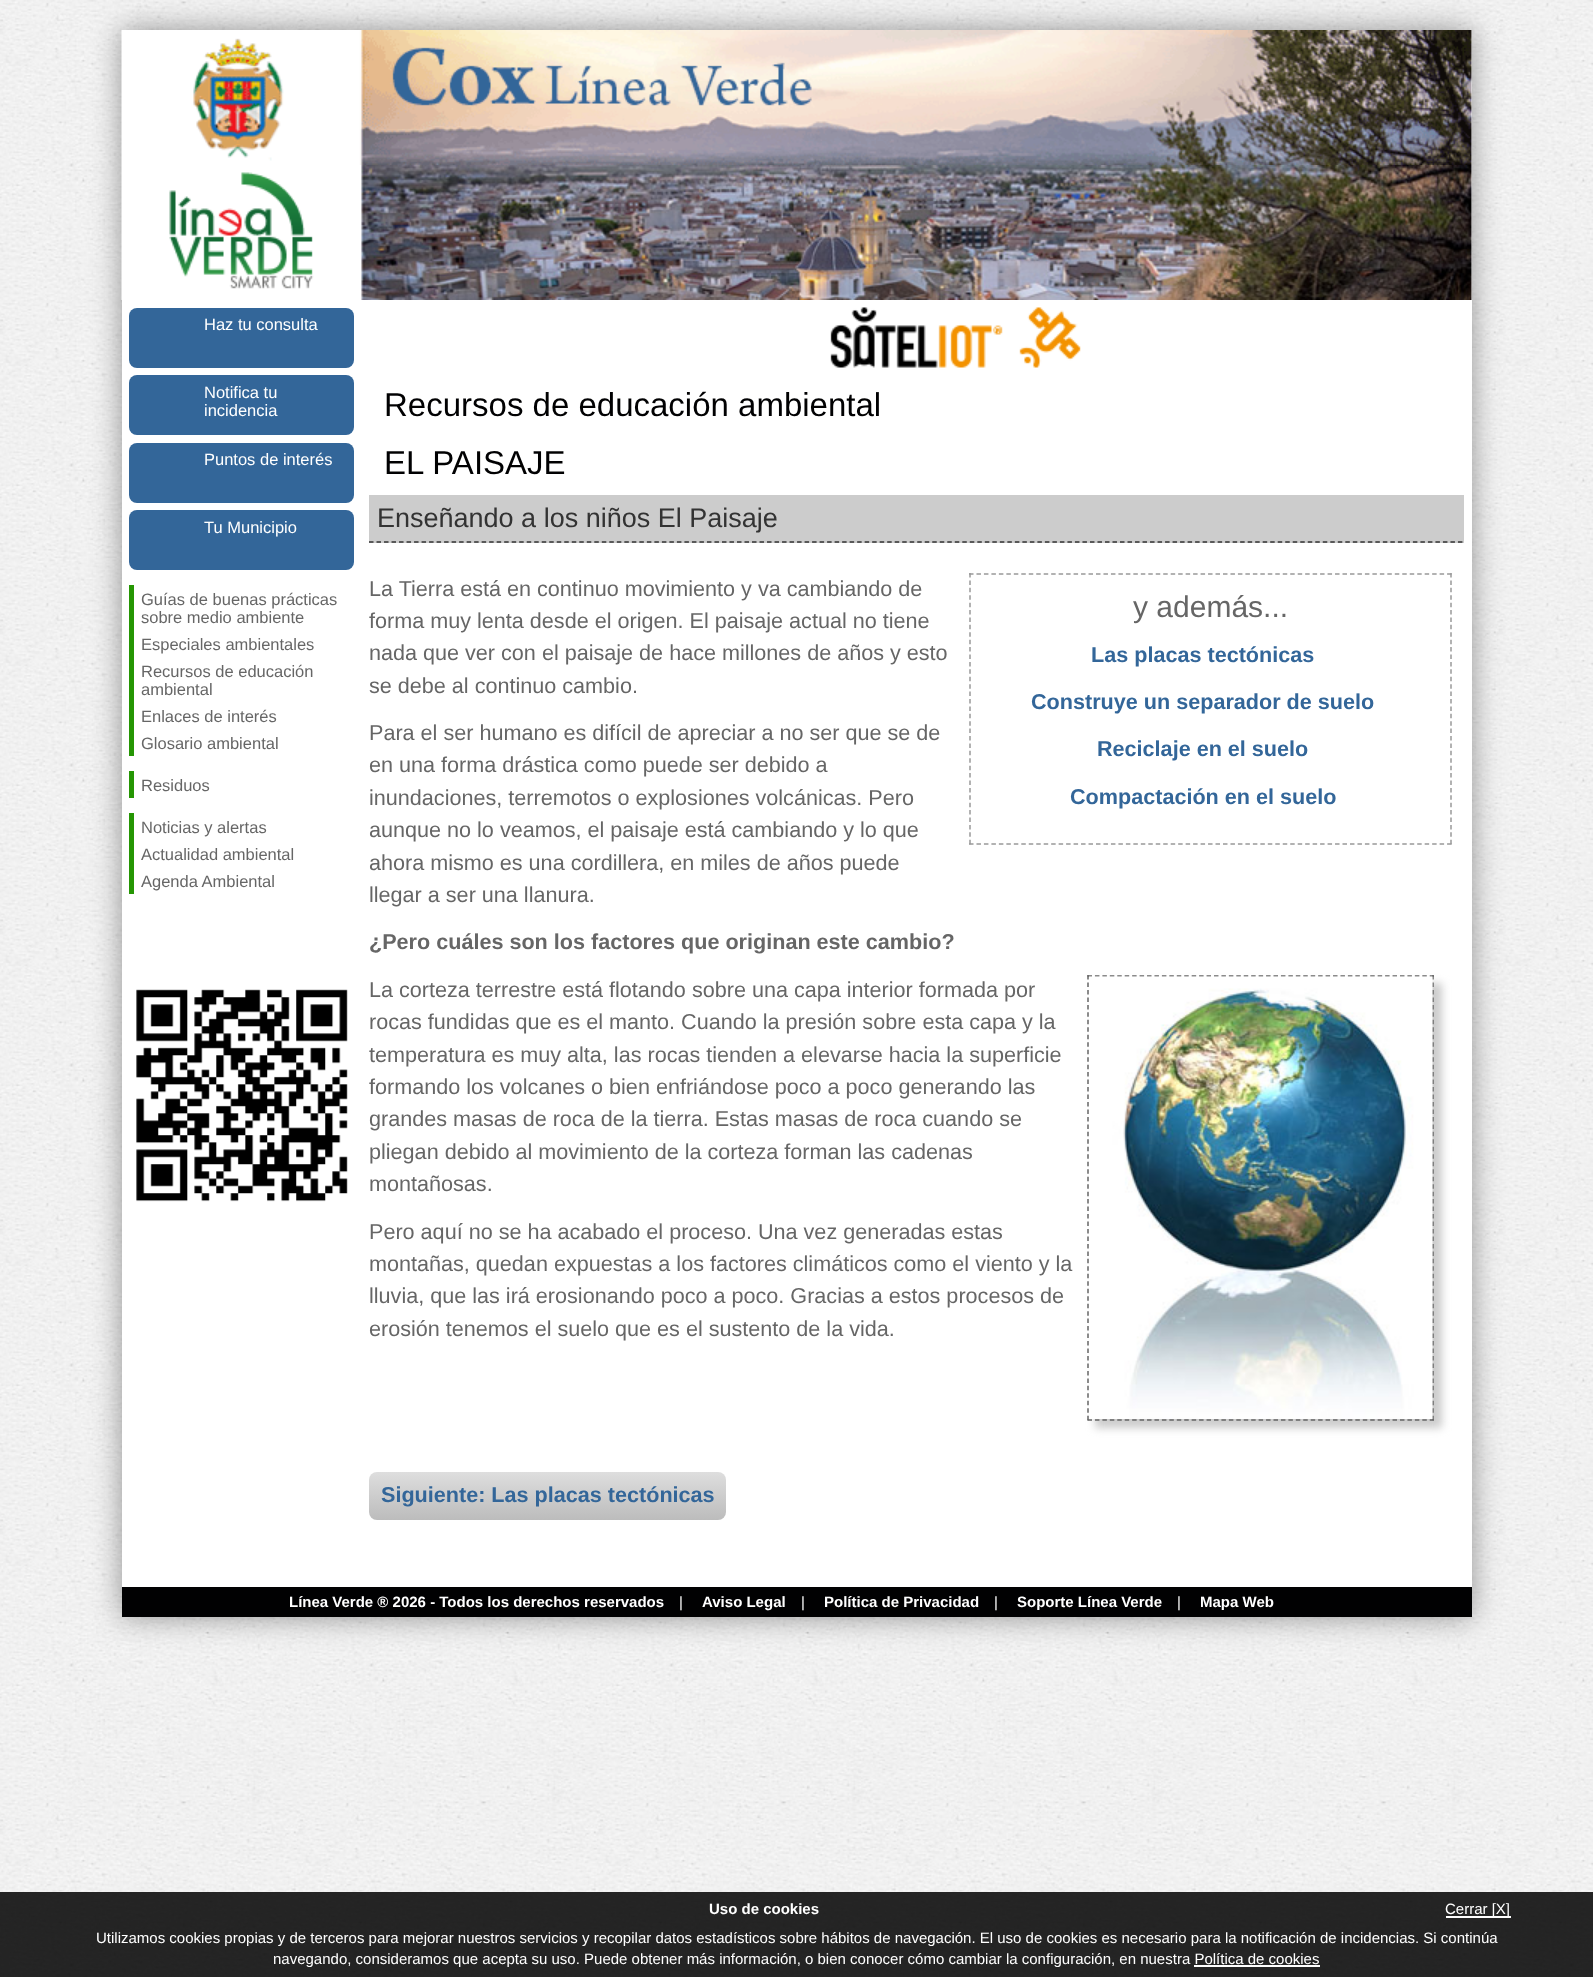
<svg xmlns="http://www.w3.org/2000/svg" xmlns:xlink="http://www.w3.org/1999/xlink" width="1593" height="1977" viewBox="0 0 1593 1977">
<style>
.cls-1{font:16.5px Liberation Sans;fill:#ffffff}
.cls-2{font:16.5px Liberation Sans;fill:#666666}
.cls-3{font:33px Liberation Sans;fill:#010102}
.cls-4{font:27px Liberation Sans;fill:#333333}
.cls-5{font:21.6px Liberation Sans;fill:#666666}
.cls-6{font:30px Liberation Sans;fill:#666666}
.cls-7{font:bold 21.6px Liberation Sans;fill:#336699}
.cls-8{font:bold 21.6px Liberation Sans;fill:#666666}
.cls-9{font:bold 15px Liberation Sans;fill:#ffffff}
.cls-10{font:15px Liberation Sans;fill:#ffffff}
</style>
<defs>
<linearGradient id="g1" gradientUnits="userSpaceOnUse" x1="548" y1="1472" x2="548" y2="1520"><stop offset="0" stop-color="#dedede"/><stop offset="1" stop-color="#bcbcbc"/></linearGradient>
</defs>
<rect width="100%" height="100%" fill="#ffffff"/>
<image xlink:href="image0.png" x="0" y="0" width="1593" height="1977"/>
<rect fill="#000000" fill-opacity="0.4" filter="blur(15px)" x="122" y="30" width="1350" height="1587"/>
<rect fill="#ffffff" x="122" y="30" width="1350" height="1557"/>
<image xlink:href="image1.png" x="121" y="30" width="1351" height="135"/>
<image xlink:href="image2.png" x="121" y="165" width="193" height="135"/>
<image xlink:href="image3.png" x="361" y="165" width="1111" height="135"/>
<image xlink:href="image4.png" x="830" y="307" width="251" height="61"/>
<rect fill="#336699" x="129" y="308" width="225" height="60" rx="8"/>
<rect fill="#336699" x="129" y="375" width="225" height="60" rx="8"/>
<rect fill="#336699" x="129" y="443" width="225" height="60" rx="8"/>
<rect fill="#336699" x="129" y="510" width="225" height="60" rx="8"/>
<rect fill="#259603" x="129" y="585" width="5" height="171"/>
<rect fill="#259603" x="129" y="771" width="5" height="27"/>
<rect fill="#259603" x="129" y="813" width="5" height="81"/>
<image xlink:href="image5.png" x="136" y="989" width="212" height="213"/>
<rect fill="#cccccc" x="369" y="495" width="1095" height="48"/>
<path fill="none" stroke="#333333" stroke-width="1.5" stroke-dasharray="4.5 3.01" d="M369 542H1464"/>
<path fill="none" stroke="#999999" stroke-width="1.5" stroke-dasharray="4.5 2.97" d="M969 574H1452"/>
<path fill="none" stroke="#999999" stroke-width="1.5" stroke-dasharray="4.5 2.91" d="M1451 573V844.5"/>
<path fill="none" stroke="#999999" stroke-width="1.5" stroke-dasharray="4.5 2.97" d="M969 844H1452"/>
<path fill="none" stroke="#999999" stroke-width="1.5" stroke-dasharray="4.5 2.91" d="M970 573V844.5"/>
<rect fill="#cccccc" filter="blur(4px)" x="1095" y="983" width="347" height="445"/>
<path fill="none" stroke="#666666" stroke-width="1.5" stroke-dasharray="4.5 2.94" d="M1087.5 976H1434"/>
<path fill="none" stroke="#666666" stroke-width="1.5" stroke-dasharray="4.5 2.97" d="M1433 975V1420.5"/>
<path fill="none" stroke="#666666" stroke-width="1.5" stroke-dasharray="4.5 2.94" d="M1087.5 1420H1434"/>
<path fill="none" stroke="#666666" stroke-width="1.5" stroke-dasharray="4.5 2.97" d="M1088 975V1420.5"/>
<image xlink:href="image6.png" x="1089" y="976" width="344" height="443"/>
<rect fill="url(#g1)" x="369" y="1472" width="357" height="48" rx="8"/>
<rect fill="#010102" x="122" y="1587" width="1350" height="30"/>
<rect fill="#000000" fill-opacity="0.85" x="0" y="1892" width="1593" height="85"/>
<rect fill="#ffffff" x="1446" y="1916" width="65" height="2"/>
<rect fill="#ffffff" x="1194" y="1965" width="126" height="2"/>
<text class="cls-1" x="204" y="330">Haz tu consulta</text>
<text class="cls-1"><tspan x="204" y="398">Notifica tu</tspan><tspan x="204" y="416">incidencia</tspan></text>
<text class="cls-1" x="204" y="465">Puntos de interés</text>
<text class="cls-1" x="204" y="533">Tu Municipio</text>
<text class="cls-2"><tspan x="141" y="605">Guías de buenas prácticas</tspan><tspan x="141" y="623">sobre medio ambiente</tspan><tspan x="141" y="650">Especiales ambientales</tspan><tspan x="141" y="677">Recursos de educación</tspan><tspan x="141" y="695">ambiental</tspan><tspan x="141" y="722">Enlaces de interés</tspan><tspan x="141" y="749">Glosario ambiental</tspan></text>
<text class="cls-2" x="141" y="791">Residuos</text>
<text class="cls-2"><tspan x="141" y="833">Noticias y alertas</tspan><tspan x="141" y="860">Actualidad ambiental</tspan><tspan x="141" y="887">Agenda Ambiental</tspan></text>
<text class="cls-3"><tspan x="384" y="416">Recursos de educación ambiental</tspan><tspan x="384" y="474">EL PAISAJE</tspan></text>
<text class="cls-4" x="377" y="527">Enseñando a los niños El Paisaje</text>
<text class="cls-5"><tspan x="369" y="596">La Tierra está en continuo movimiento y va cambiando de</tspan><tspan x="369" y="628">forma muy lenta desde el origen. El paisaje actual no tiene</tspan><tspan x="369" y="660">nada que ver con el paisaje de hace millones de años y esto</tspan><tspan x="369" y="693">se debe al continuo cambio.</tspan></text>
<text class="cls-6" x="1133" y="617">y además...</text>
<text class="cls-7" x="1091" y="662">Las placas tectónicas</text>
<text class="cls-7" x="1031" y="709">Construye un separador de suelo</text>
<text class="cls-7" x="1097" y="756">Reciclaje en el suelo</text>
<text class="cls-7" x="1070" y="804">Compactación en el suelo</text>
<text class="cls-5"><tspan x="369" y="740">Para el ser humano es difícil de apreciar a no ser que se de</tspan><tspan x="369" y="772">en una forma drástica como puede ser debido a</tspan><tspan x="369" y="805">inundaciones, terremotos o explosiones volcánicas. Pero</tspan><tspan x="369" y="837">aunque no lo veamos, el paisaje está cambiando y lo que</tspan><tspan x="369" y="870">ahora mismo es una cordillera, en miles de años puede</tspan><tspan x="369" y="902">llegar a ser una llanura.</tspan></text>
<text class="cls-8" x="369" y="949">¿Pero cuáles son los factores que originan este cambio?</text>
<text class="cls-5"><tspan x="369" y="997">La corteza terrestre está flotando sobre una capa interior formada por</tspan><tspan x="369" y="1029">rocas fundidas que es el manto. Cuando la presión sobre esta capa y la</tspan><tspan x="369" y="1062">temperatura es muy alta, las rocas tienden a elevarse hacia la superficie</tspan><tspan x="369" y="1094">formando los volcanes o bien enfriándose poco a poco generando las</tspan><tspan x="369" y="1126">grandes masas de roca de la tierra. Estas masas de roca cuando se</tspan><tspan x="369" y="1159">pliegan debido al movimiento de la corteza forman las cadenas</tspan><tspan x="369" y="1191">montañosas.</tspan></text>
<text class="cls-5"><tspan x="369" y="1239">Pero aquí no se ha acabado el proceso. Una vez generadas estas</tspan><tspan x="369" y="1271">montañas, quedan expuestas a los factores climáticos como el viento y la</tspan><tspan x="369" y="1303">lluvia, que las irá erosionando poco a poco. Gracias a estos procesos de</tspan><tspan x="369" y="1336">erosión tenemos el suelo que es el sustento de la vida.</tspan></text>
<text class="cls-7" x="381" y="1502">Siguiente: Las placas tectónicas</text>
<text class="cls-9" x="289" y="1607">Línea Verde ® 2026 - Todos los derechos reservados</text>
<text class="cls-10" x="679" y="1607">|</text>
<text class="cls-9" x="702" y="1607">Aviso Legal</text>
<text class="cls-10" x="801" y="1607">|</text>
<text class="cls-9" x="824" y="1607">Política de Privacidad</text>
<text class="cls-10" x="994" y="1607">|</text>
<text class="cls-9" x="1017" y="1607">Soporte Línea Verde</text>
<text class="cls-10" x="1177" y="1607">|</text>
<text class="cls-9" x="1200" y="1607">Mapa Web</text>
<text class="cls-9" x="709" y="1914">Uso de cookies</text>
<text class="cls-10" x="1445" y="1914">Cerrar [X]</text>
<text class="cls-10" x="96" y="1943">Utilizamos cookies propias y de terceros para mejorar nuestros servicios y recopilar datos estadísticos sobre hábitos de navegación. El uso de cookies es necesario para la notificación de incidencias. Si continúa</text>
<text class="cls-10" x="273" y="1964">navegando, consideramos que acepta su uso. Puede obtener más información, o bien conocer cómo cambiar la configuración, en nuestra Política de cookies</text>
</svg>
